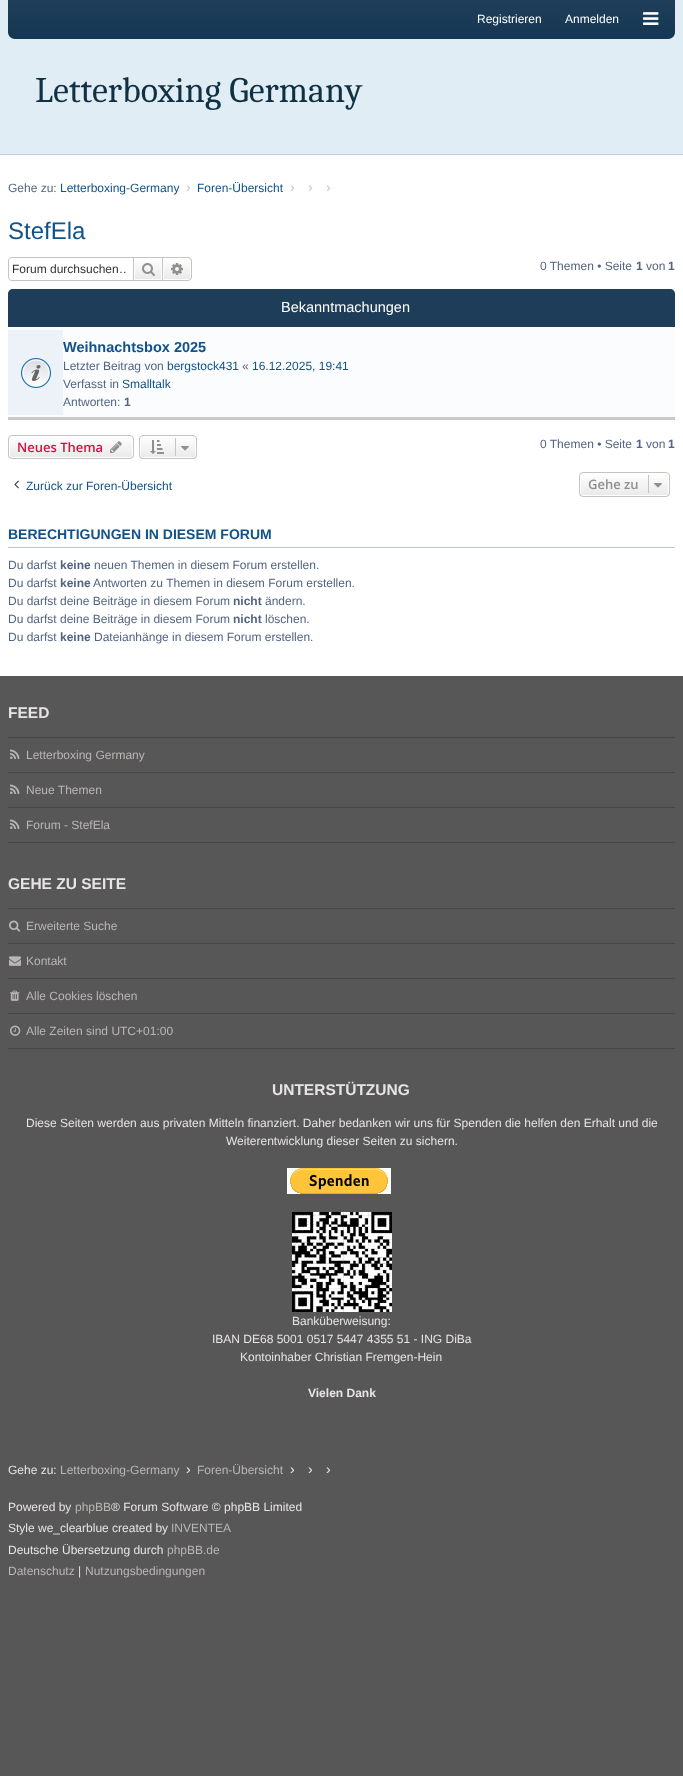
<svg xmlns="http://www.w3.org/2000/svg" xmlns:xlink="http://www.w3.org/1999/xlink" width="683" height="1776" viewBox="0 0 683 1776">
<style>
.cls-1{font:12px Liberation Sans;fill:#ffffff}
.cls-2{font:36px Caladea;fill:#103143}
.cls-3{font:12px Liberation Sans;fill:#536482}
.cls-4{font:12px Liberation Sans;fill:#105289}
.cls-5{font:14px Liberation Sans;fill:#b7c9d7}
.cls-6{font:24px Liberation Sans;fill:#105289}
.cls-7{font:12px Liberation Sans;fill:#333333}
.cls-8{font:bold 12px Liberation Sans;fill:#536482}
.cls-9{font:14.5px Liberation Sans;fill:#ffffff}
.cls-10{font:bold 14.5px Liberation Sans;fill:#105289}
.cls-11{font:600 13px Open Sans;fill:#d31141}
.cls-12{font:600 13px Open Sans;fill:#8f8f8f}
.cls-13{font:bold 14px Liberation Sans;fill:#105289}
.cls-14{font:bold 15.5px Liberation Sans;fill:#e7e4e4}
.cls-15{font:12px Liberation Sans;fill:#bab6b6}
.cls-16{font:12px Liberation Sans;fill:#e7e4e4}
.cls-17{font:bold 12px Liberation Sans;fill:#e7e4e4}
.cls-18{font:14px Liberation Sans;fill:#e7e4e4}
</style>
<defs>
<linearGradient id="g1" gradientUnits="userSpaceOnUse" x1="342" y1="0" x2="342" y2="39"><stop offset="0" stop-color="#1f3e59"/><stop offset="1" stop-color="#153753"/></linearGradient>
<linearGradient id="g2" gradientUnits="userSpaceOnUse" x1="148" y1="258" x2="148" y2="280"><stop offset="0" stop-color="#ffffff"/><stop offset="1" stop-color="#e9e9e9"/></linearGradient>
<linearGradient id="g3" gradientUnits="userSpaceOnUse" x1="177" y1="258" x2="177" y2="280"><stop offset="0" stop-color="#ffffff"/><stop offset="1" stop-color="#e9e9e9"/></linearGradient>
<linearGradient id="g4" gradientUnits="userSpaceOnUse" x1="342" y1="289" x2="342" y2="417"><stop offset="0" stop-color="#1f3e59"/><stop offset="1" stop-color="#153753"/></linearGradient>
<clipPath id="clip1"><rect x="8" y="435" width="126" height="24" rx="4"/></clipPath>
<linearGradient id="g5" gradientUnits="userSpaceOnUse" x1="71" y1="436" x2="71" y2="458"><stop offset="0" stop-color="#ffffff"/><stop offset="1" stop-color="#e9e9e9"/></linearGradient>
<clipPath id="clip2"><rect x="139" y="435" width="58" height="24" rx="4"/></clipPath>
<linearGradient id="g6" gradientUnits="userSpaceOnUse" x1="168" y1="436" x2="168" y2="458"><stop offset="0" stop-color="#ffffff"/><stop offset="1" stop-color="#e9e9e9"/></linearGradient>
<clipPath id="clip3"><rect x="579" y="472" width="91" height="25" rx="4"/></clipPath>
<linearGradient id="g7" gradientUnits="userSpaceOnUse" x1="625" y1="473" x2="625" y2="496"><stop offset="0" stop-color="#ffffff"/><stop offset="1" stop-color="#e9e9e9"/></linearGradient>
<clipPath id="clip4"><rect x="12" y="262" width="114" height="14"/></clipPath>
</defs>
<rect width="100%" height="100%" fill="#ffffff"/>
<rect fill="#e0edf4" x="0" y="0" width="683" height="154"/>
<path fill="url(#g1)" d="M8 0H675V32C675 36 672 39 668 39H15C11 39 8 36 8 32Z"/>
<image xlink:href="image0.png" x="643" y="12" width="16" height="13"/>
<rect fill="#bad1de" x="0" y="154" width="683" height="1"/>
<path fill="#c7c3bf" fill-rule="evenodd" d="M12 257H133V281H12C10 281 8 279 8 277V261C8 259 10 257 12 257ZM12 258H133V280H12C10 280 9 279 9 277V261C9 259 10 258 12 258Z"/>
<rect fill="url(#g2)" x="135" y="261" width="26" height="18"/>
<rect fill="none" stroke="#c7c3bf" x="133.5" y="257.5" width="29" height="23"/>
<image xlink:href="image1.png" x="142" y="263" width="13" height="13"/>
<path fill="url(#g3)" stroke="#ffffff" d="M163.5 258.5H188C189.5 258.5 190.5 259.5 190.5 261V277C190.5 278.5 189.5 279.5 188 279.5H163.5Z"/>
<path fill="#c7c3bf" fill-rule="evenodd" d="M163 257H188C190 257 192 259 192 261V277C192 279 190 281 188 281H163ZM163 258H188C189.5 258 191 259.5 191 261V277C191 278.5 189.5 280 188 280H163Z"/>
<image xlink:href="image2.png" x="171" y="263" width="12" height="12"/>
<path fill="url(#g4)" d="M13 289H670C673 289 675 291 675 294V417H8V294C8 291 10 289 13 289Z"/>
<rect fill="#cacaca" x="8" y="417" width="667" height="3"/>
<rect fill="#fafcfe" x="8" y="328" width="667" height="89"/>
<rect fill="#ffffff" x="8" y="327" width="667" height="1"/>
<rect fill="#ecf2f7" x="8" y="330" width="55" height="85"/>
<image xlink:href="image3.png" x="21" y="358" width="30" height="30"/>
<g clip-path="url(#clip1)">
<rect fill="url(#g5)" x="8" y="436" width="126" height="22"/>
</g>
<rect fill="none" stroke="#ffffff" x="9.5" y="436.5" width="123" height="21" rx="2.5"/>
<rect fill="none" stroke="#c7c3bf" x="8.5" y="435.5" width="125" height="23" rx="3.5"/>
<image xlink:href="image4.png" x="110" y="441" width="12" height="12"/>
<g clip-path="url(#clip2)">
<rect fill="url(#g6)" x="139" y="436" width="58" height="22"/>
</g>
<rect fill="none" stroke="#ffffff" x="140.5" y="436.5" width="55" height="21" rx="2.5"/>
<rect fill="none" stroke="#c7c3bf" x="139.5" y="435.5" width="57" height="23" rx="3.5"/>
<image xlink:href="image5.png" x="150" y="440" width="14" height="14"/>
<rect fill="#c7c3bf" x="175" y="438" width="1" height="18"/>
<image xlink:href="image6.png" x="181" y="446" width="8" height="5"/>
<image xlink:href="image7.png" x="14" y="480" width="5" height="9"/>
<g clip-path="url(#clip3)">
<rect fill="url(#g7)" x="579" y="473" width="91" height="23"/>
</g>
<rect fill="none" stroke="#ffffff" x="580.5" y="473.5" width="88" height="22" rx="2.5"/>
<rect fill="none" stroke="#c7c3bf" x="579.5" y="472.5" width="90" height="24" rx="3.5"/>
<rect fill="#c7c3bf" x="648" y="475" width="1" height="18"/>
<image xlink:href="image6.png" x="654" y="483" width="8" height="5"/>
<rect fill="#b7c9d7" x="8" y="547" width="667" height="1"/>
<rect fill="#585757" x="0" y="676" width="683" height="1100"/>
<rect fill="#474646" x="8" y="737" width="667" height="1"/>
<image xlink:href="image8.png" x="10" y="749" width="10" height="10"/>
<rect fill="#474646" x="8" y="772" width="667" height="1"/>
<image xlink:href="image8.png" x="10" y="784" width="10" height="10"/>
<rect fill="#474646" x="8" y="807" width="667" height="1"/>
<rect fill="#474646" x="8" y="842" width="667" height="1"/>
<image xlink:href="image8.png" x="10" y="819" width="10" height="10"/>
<rect fill="#474646" x="8" y="908" width="667" height="1"/>
<image xlink:href="image9.png" x="9" y="920" width="12" height="12"/>
<rect fill="#474646" x="8" y="943" width="667" height="1"/>
<image xlink:href="image10.png" x="9" y="956" width="12" height="10"/>
<rect fill="#474646" x="8" y="978" width="667" height="1"/>
<image xlink:href="image11.png" x="10" y="990" width="10" height="11"/>
<rect fill="#474646" x="8" y="1013" width="667" height="1"/>
<rect fill="#474646" x="8" y="1048" width="667" height="1"/>
<image xlink:href="image12.png" x="10" y="1025" width="11" height="11"/>
<rect fill="#ffffff" x="287" y="1168" width="104" height="26"/>
<image xlink:href="image13.png" x="290" y="1168" width="98" height="26"/>
<image xlink:href="image14.png" x="292" y="1212" width="100" height="100"/>
<text class="cls-1" x="477" y="23">Registrieren</text>
<text class="cls-1" x="565" y="23">Anmelden</text>
<text class="cls-2" x="35" y="102">Letterboxing Germany</text>
<text class="cls-3" x="8" y="192">Gehe zu:</text>
<text class="cls-4" x="60" y="192">Letterboxing-Germany</text>
<text class="cls-5" x="186" y="192">›</text>
<text class="cls-4" x="197" y="192">Foren-Übersicht</text>
<text class="cls-5" x="290" y="192">›</text>
<text class="cls-5" x="308" y="192">›</text>
<text class="cls-5" x="326" y="192">›</text>
<text class="cls-6" x="8" y="239">StefEla</text>
<g clip-path="url(#clip4)">
<text class="cls-7" x="12" y="273">Forum durchsuchen…</text>
</g>
<text class="cls-3" x="540" y="270">0 Themen • Seite</text>
<text class="cls-8" x="636" y="270">1</text>
<text class="cls-3" x="646" y="270">von</text>
<text class="cls-8" x="668" y="270">1</text>
<text class="cls-9" x="281" y="312">Bekanntmachungen</text>
<text class="cls-10" x="63" y="352">Weihnachtsbox 2025</text>
<text class="cls-3" x="63" y="370">Letzter Beitrag von</text>
<text class="cls-4" x="167" y="370">bergstock431</text>
<text class="cls-3" x="242" y="370">«</text>
<text class="cls-4" x="252" y="370">16.12.2025, 19:41</text>
<text class="cls-3" x="63" y="388">Verfasst in</text>
<text class="cls-4" x="122" y="388">Smalltalk</text>
<text class="cls-3" x="63" y="406">Antworten:</text>
<text class="cls-8" x="124" y="406">1</text>
<text class="cls-11" x="17" y="452">Neues Thema</text>
<text class="cls-3" x="540" y="448">0 Themen • Seite</text>
<text class="cls-8" x="636" y="448">1</text>
<text class="cls-3" x="646" y="448">von</text>
<text class="cls-8" x="668" y="448">1</text>
<text class="cls-4" x="26" y="490">Zurück zur Foren-Übersicht</text>
<text class="cls-12" x="588" y="489">Gehe zu</text>
<text class="cls-13" x="8" y="539">BERECHTIGUNGEN IN DIESEM FORUM</text>
<text class="cls-3" x="8" y="569">Du darfst</text>
<text class="cls-8" x="60" y="569">keine</text>
<text class="cls-3" x="94" y="569">neuen Themen in diesem Forum erstellen.</text>
<text class="cls-3" x="8" y="587">Du darfst</text>
<text class="cls-8" x="60" y="587">keine</text>
<text class="cls-3" x="93" y="587">Antworten zu Themen in diesem Forum erstellen.</text>
<text class="cls-3" x="8" y="605">Du darfst deine Beiträge in diesem Forum</text>
<text class="cls-8" x="233" y="605">nicht</text>
<text class="cls-3" x="265" y="605">ändern.</text>
<text class="cls-3" x="8" y="623">Du darfst deine Beiträge in diesem Forum</text>
<text class="cls-8" x="233" y="623">nicht</text>
<text class="cls-3" x="265" y="623">löschen.</text>
<text class="cls-3" x="8" y="641">Du darfst</text>
<text class="cls-8" x="60" y="641">keine</text>
<text class="cls-3" x="94" y="641">Dateianhänge in diesem Forum erstellen.</text>
<text class="cls-14" x="8" y="718">FEED</text>
<text class="cls-15" x="26" y="759">Letterboxing Germany</text>
<text class="cls-15" x="26" y="794">Neue Themen</text>
<text class="cls-15" x="26" y="829">Forum - StefEla</text>
<text class="cls-14" x="8" y="889">GEHE ZU SEITE</text>
<text class="cls-15" x="26" y="930">Erweiterte Suche</text>
<text class="cls-15" x="26" y="965">Kontakt</text>
<text class="cls-15" x="26" y="1000">Alle Cookies löschen</text>
<text class="cls-15" x="26" y="1035">Alle Zeiten sind UTC+01:00</text>
<text class="cls-14" x="272" y="1095">UNTERSTÜTZUNG</text>
<text class="cls-16" x="26" y="1127">Diese Seiten werden aus privaten Mitteln finanziert. Daher bedanken wir uns für Spenden die helfen den Erhalt und die</text>
<text class="cls-16" x="226" y="1145">Weiterentwicklung dieser Seiten zu sichern.</text>
<text class="cls-16" x="292" y="1325">Banküberweisung:</text>
<text class="cls-16" x="212" y="1343">IBAN DE68 5001 0517 5447 4355 51 - ING DiBa</text>
<text class="cls-16" x="240" y="1361">Kontoinhaber Christian Fremgen-Hein</text>
<text class="cls-17" x="308" y="1397">Vielen Dank</text>
<text class="cls-16" x="8" y="1474">Gehe zu:</text>
<text class="cls-15" x="60" y="1474">Letterboxing-Germany</text>
<text class="cls-18" x="186" y="1474">›</text>
<text class="cls-15" x="197" y="1474">Foren-Übersicht</text>
<text class="cls-18" x="290" y="1474">›</text>
<text class="cls-18" x="308" y="1474">›</text>
<text class="cls-18" x="326" y="1474">›</text>
<text class="cls-16" x="8" y="1511">Powered by</text>
<text class="cls-15" x="75" y="1511">phpBB</text>
<text class="cls-16" x="111" y="1511">® Forum Software © phpBB Limited</text>
<text class="cls-16" x="8" y="1532">Style we_clearblue created by</text>
<text class="cls-15" x="171" y="1532">INVENTEA</text>
<text class="cls-16" x="8" y="1554">Deutsche Übersetzung durch</text>
<text class="cls-15" x="167" y="1554">phpBB.de</text>
<text class="cls-15" x="8" y="1575">Datenschutz</text>
<text class="cls-16" x="78" y="1575">|</text>
<text class="cls-15" x="85" y="1575">Nutzungsbedingungen</text>
</svg>
